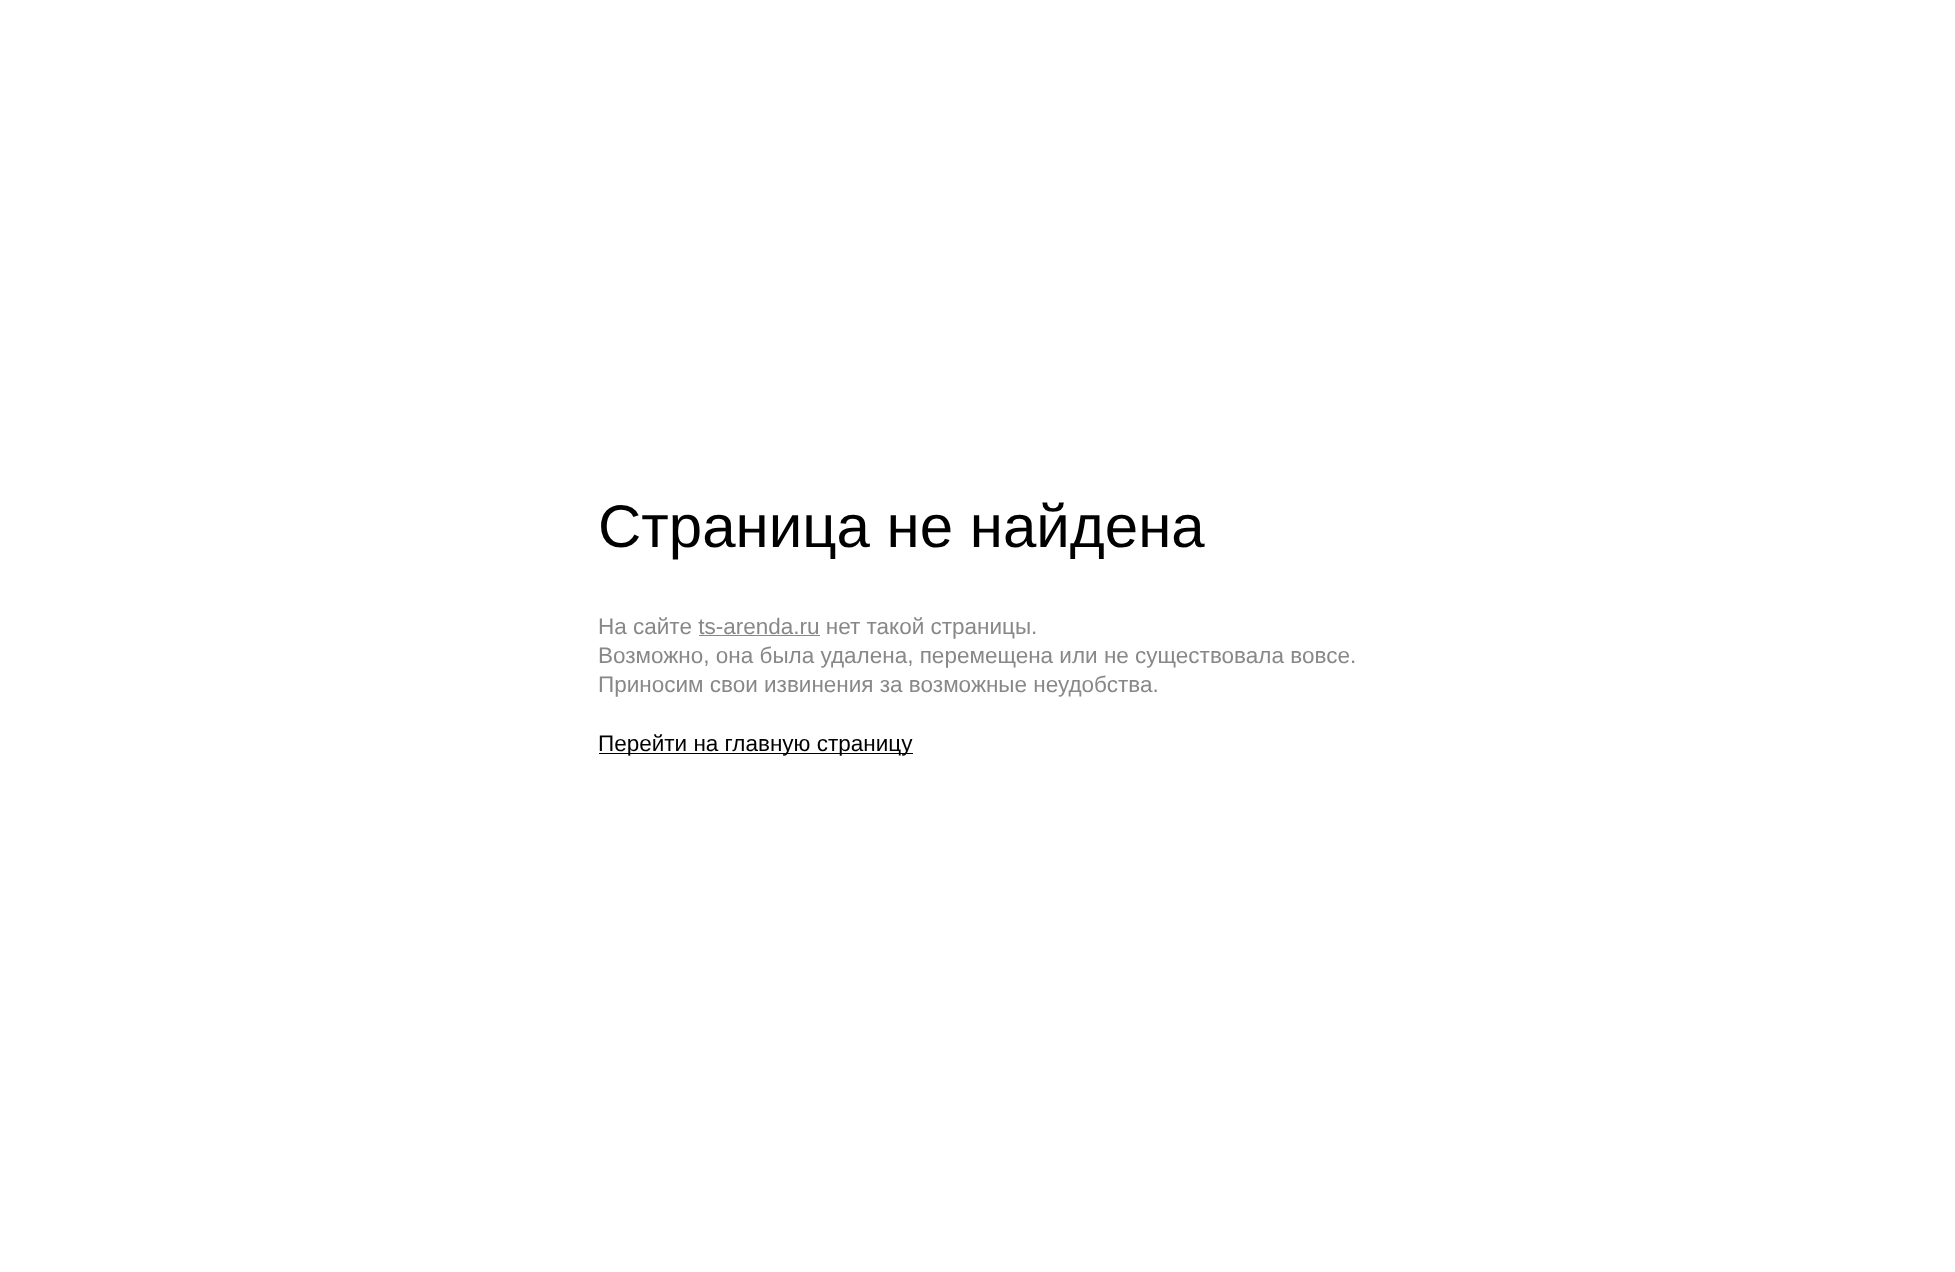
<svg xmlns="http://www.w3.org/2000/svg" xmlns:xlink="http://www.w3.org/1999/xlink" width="1955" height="1272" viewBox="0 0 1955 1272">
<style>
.cls-1{font:60px Liberation Sans;fill:#000000}
.cls-2{font:22.5px Liberation Sans;fill:#888888}
.cls-3{font:22.5px Liberation Sans;fill:#000000}
</style>
<rect width="100%" height="100%" fill="#ffffff"/>
<rect fill="#888888" x="699" y="635" width="121" height="1"/>
<rect fill="#000000" x="599" y="753" width="314" height="1"/>
<text class="cls-1" x="598" y="547">Страница не найдена</text>
<text class="cls-2"><tspan x="598" y="634">На сайте ts-arenda.ru нет такой страницы.</tspan><tspan x="598" y="663">Возможно, она была удалена, перемещена или не существовала вовсе.</tspan><tspan x="598" y="692">Приносим свои извинения за возможные неудобства.</tspan></text>
<text class="cls-3" x="598" y="751">Перейти на главную страницу</text>
</svg>
